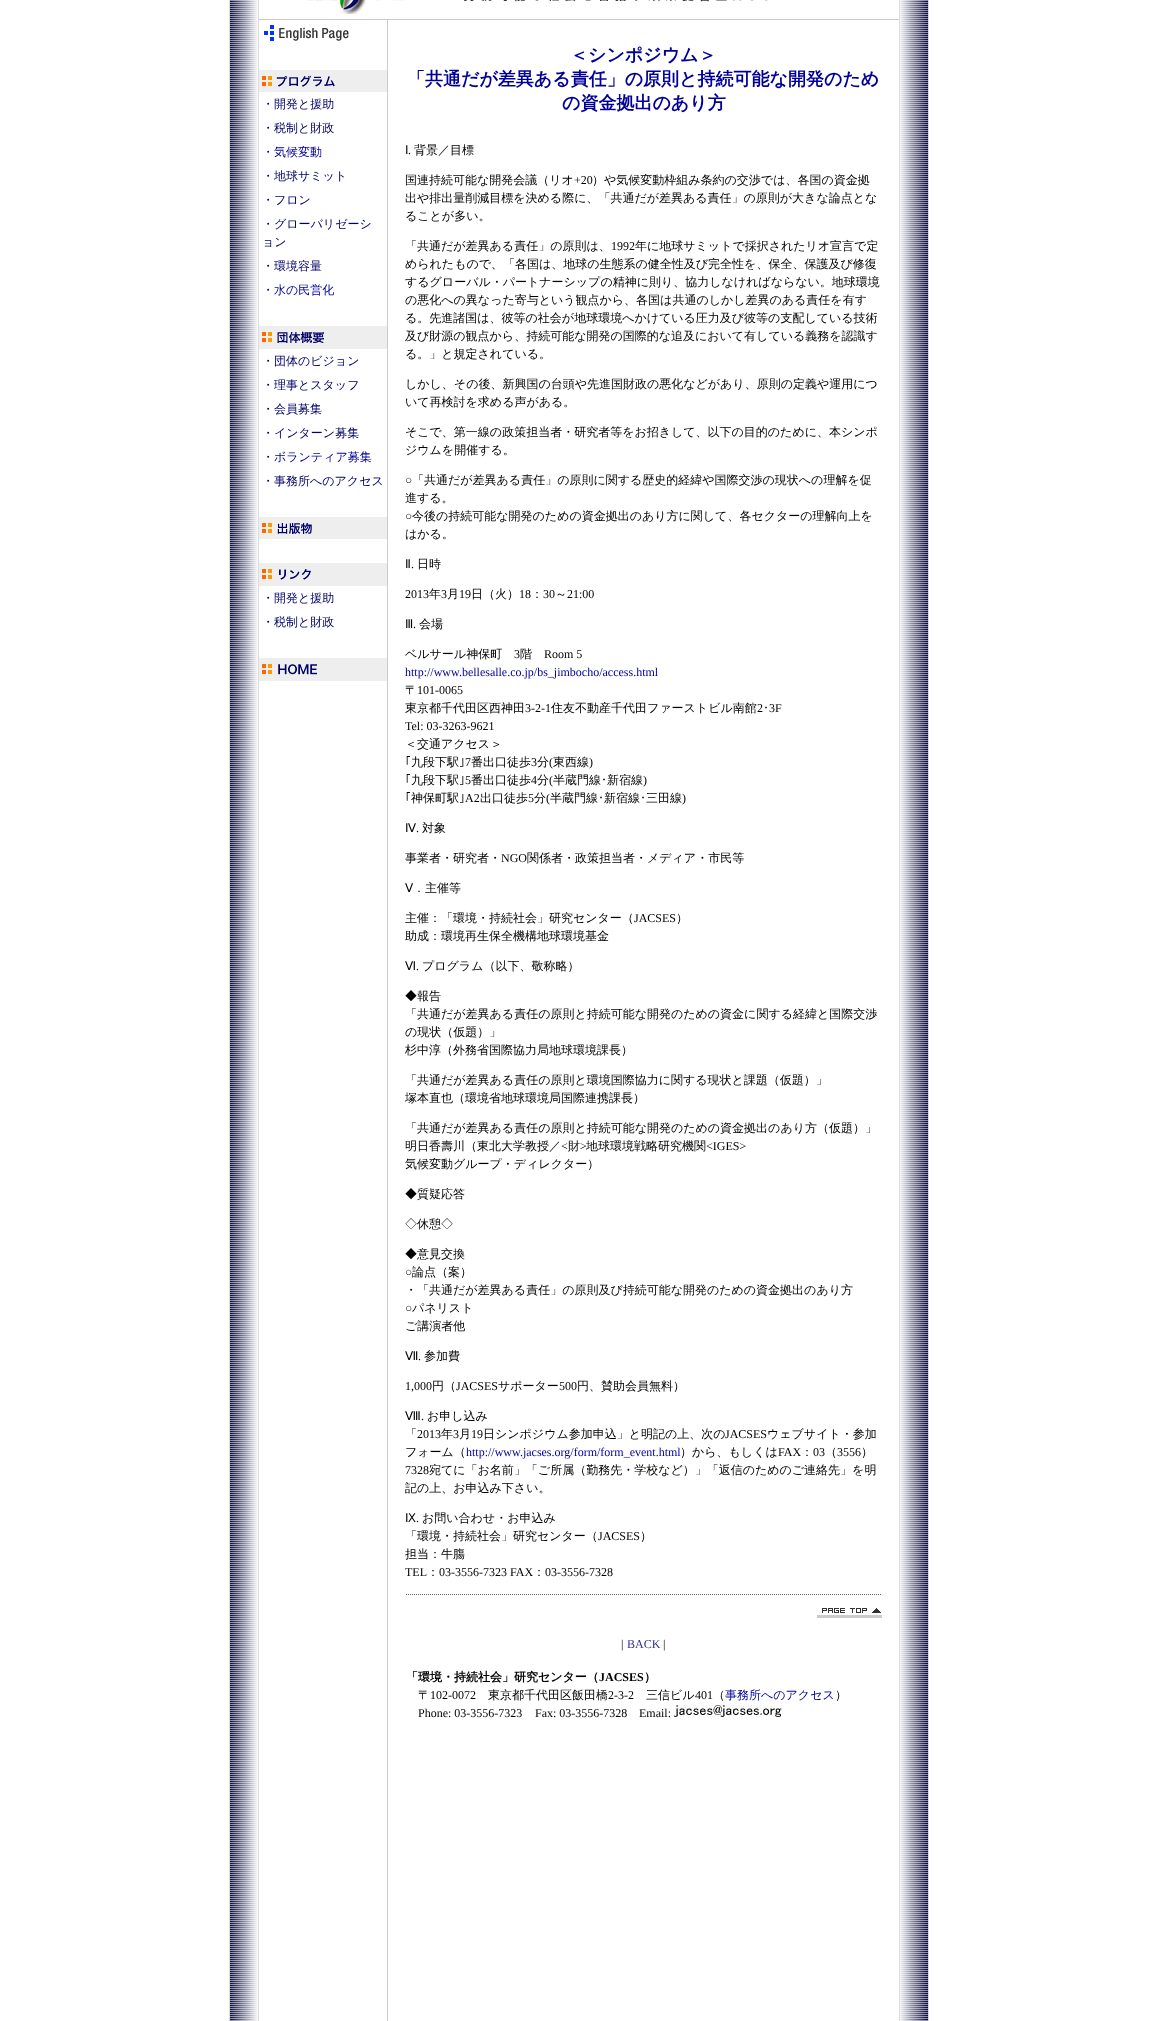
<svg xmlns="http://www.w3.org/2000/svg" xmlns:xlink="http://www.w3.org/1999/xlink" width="1158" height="2021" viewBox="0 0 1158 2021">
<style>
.cls-1{font:500 12px WenQuanYi Zen Hei;fill:#000066}
.cls-2{font:500 12px WenQuanYi Zen Hei;fill:#000099}
.cls-3{font:bold 18px WenQuanYi Zen Hei;fill:#000099}
.cls-4{font:12px DejaVu Sans;fill:#000000}
.cls-5{font:12px Liberation Serif;fill:#000000}
.cls-6{font:500 12px WenQuanYi Zen Hei;fill:#000000}
.cls-7{font:12px Liberation Serif;fill:#000099}
.cls-8{font:12px IPAGothic;fill:#000000}
.cls-9{font:12px Liberation Serif;fill:#333399}
.cls-10{font:bold 12px WenQuanYi Zen Hei;fill:#000000}
.cls-11{font:bold 12px Liberation Serif;fill:#000000}
</style>
<rect width="100%" height="100%" fill="#ffffff"/>
<image xlink:href="image0.png" x="229" y="0" width="30" height="2021"/>
<image xlink:href="image1.png" x="304" y="0" width="464" height="14"/>
<rect fill="#cccccc" x="259" y="19" width="640" height="1"/>
<image xlink:href="image2.png" x="264" y="25" width="85" height="16"/>
<rect fill="#eeeeee" x="259" y="70" width="128" height="22"/>
<image xlink:href="image3.png" x="262" y="75" width="73" height="12"/>
<rect fill="#eeeeee" x="259" y="326" width="128" height="23"/>
<image xlink:href="image4.png" x="262" y="331" width="62" height="13"/>
<rect fill="#eeeeee" x="259" y="517" width="128" height="22"/>
<image xlink:href="image5.png" x="262" y="522" width="50" height="12"/>
<rect fill="#eeeeee" x="259" y="563" width="128" height="23"/>
<image xlink:href="image6.png" x="262" y="569" width="49" height="11"/>
<rect fill="#eeeeee" x="259" y="658" width="128" height="23"/>
<image xlink:href="image7.png" x="262" y="664" width="55" height="11"/>
<rect fill="#cccccc" x="387" y="20" width="1" height="2001"/>
<image xlink:href="image8.png" x="406" y="1594" width="475" height="1"/>
<image xlink:href="image9.png" x="817" y="1608" width="65" height="10"/>
<image xlink:href="image10.png" x="674" y="1705" width="108" height="12"/>
<image xlink:href="image11.png" x="899" y="0" width="30" height="2021"/>
<text class="cls-1" x="262" y="108">・開発と援助</text>
<text class="cls-1" x="262" y="132">・税制と財政</text>
<text class="cls-2" x="262" y="156">・気候変動</text>
<text class="cls-1" x="262" y="180">・地球サミット</text>
<text class="cls-1" x="262" y="204">・フロン</text>
<text class="cls-1"><tspan x="262" y="228">・グローバリゼーシ</tspan><tspan x="262" y="246">ョン</tspan></text>
<text class="cls-1" x="262" y="270">・環境容量</text>
<text class="cls-2" x="262" y="294">・水の民営化</text>
<text class="cls-1" x="262" y="365">・団体のビジョン</text>
<text class="cls-1" x="262" y="389">・理事とスタッフ</text>
<text class="cls-1" x="262" y="413">・会員募集</text>
<text class="cls-1" x="262" y="437">・インターン募集</text>
<text class="cls-2" x="262" y="461">・ボランティア募集</text>
<text class="cls-1" x="262" y="485">・事務所へのアクセス</text>
<text class="cls-1" x="262" y="602">・開発と援助</text>
<text class="cls-1" x="262" y="626">・税制と財政</text>
<text class="cls-3" x="570" y="61">＜シンポジウム＞</text>
<text class="cls-3" x="407" y="85">「共通だが差異ある責任」の原則と持続可能な開発のため</text>
<text class="cls-3" x="562" y="109">の資金拠出のあり方</text>
<text class="cls-4" x="405" y="154">Ⅰ</text>
<text class="cls-5" x="408" y="154">.</text>
<text class="cls-6" x="414" y="154">背景／目標</text>
<text class="cls-6" x="405" y="184">国連持続可能な開発会議（リオ</text>
<text class="cls-5" x="574" y="184">+20</text>
<text class="cls-6" x="592" y="184">）や気候変動枠組み条約の交渉では、各国の資金拠</text>
<text class="cls-6"><tspan x="405" y="202">出や排出量削減目標を決める際に、「共通だが差異ある責任」の原則が大きな論点とな</tspan><tspan x="405" y="220">ることが多い。</tspan></text>
<text class="cls-6" x="405" y="250">「共通だが差異ある責任」の原則は、</text>
<text class="cls-5" x="611" y="250">1992</text>
<text class="cls-6" x="635" y="250">年に地球サミットで採択されたリオ宣言で定</text>
<text class="cls-6"><tspan x="405" y="268">められたもので、「各国は、地球の生態系の健全性及び完全性を、保全、保護及び修復</tspan><tspan x="405" y="286">するグローバル・パートナーシップの精神に則り、協力しなければならない。地球環境</tspan><tspan x="405" y="304">の悪化への異なった寄与という観点から、各国は共通のしかし差異のある責任を有す</tspan><tspan x="405" y="322">る。先進諸国は、彼等の社会が地球環境へかけている圧力及び彼等の支配している技術</tspan><tspan x="405" y="340">及び財源の観点から、持続可能な開発の国際的な追及において有している義務を認識す</tspan><tspan x="405" y="358">る。」と規定されている。</tspan></text>
<text class="cls-6"><tspan x="405" y="388">しかし、その後、新興国の台頭や先進国財政の悪化などがあり、原則の定義や運用につ</tspan><tspan x="405" y="406">いて再検討を求める声がある。</tspan></text>
<text class="cls-6"><tspan x="405" y="436">そこで、第一線の政策担当者・研究者等をお招きして、以下の目的のために、本シンポ</tspan><tspan x="405" y="454">ジウムを開催する。</tspan></text>
<text class="cls-5" x="405" y="484">○</text>
<text class="cls-6" x="412" y="484">「共通だが差異ある責任」の原則に関する歴史的経緯や国際交渉の現状への理解を促</text>
<text class="cls-6" x="405" y="502">進する。</text>
<text class="cls-5" x="405" y="520">○</text>
<text class="cls-6" x="412" y="520">今後の持続可能な開発のための資金拠出のあり方に関して、各セクターの理解向上を</text>
<text class="cls-6" x="405" y="538">はかる。</text>
<text class="cls-4" x="405" y="568">Ⅱ</text>
<text class="cls-5" x="411" y="568">.</text>
<text class="cls-6" x="417" y="568">日時</text>
<text class="cls-5" x="405" y="598">2013</text>
<text class="cls-6" x="429" y="598">年</text>
<text class="cls-5" x="441" y="598">3</text>
<text class="cls-6" x="447" y="598">月</text>
<text class="cls-5" x="459" y="598">19</text>
<text class="cls-6" x="471" y="598">日（火）</text>
<text class="cls-5" x="519" y="598">18</text>
<text class="cls-6" x="531" y="598">：</text>
<text class="cls-5" x="543" y="598">30</text>
<text class="cls-6" x="555" y="598">～</text>
<text class="cls-5" x="567" y="598">21:00</text>
<text class="cls-4" x="405" y="628">Ⅲ</text>
<text class="cls-5" x="413" y="628">.</text>
<text class="cls-6" x="419" y="628">会場</text>
<text class="cls-6" x="405" y="658">ベルサール神保町</text>
<text class="cls-5" x="514" y="658">3</text>
<text class="cls-6" x="520" y="658">階</text>
<text class="cls-5" x="544" y="658">Room 5</text>
<text class="cls-7" x="405" y="676">http://www.bellesalle.co.jp/bs_jimbocho/access.html</text>
<text class="cls-6" x="405" y="694">〒</text>
<text class="cls-5" x="417" y="694">101-0065</text>
<text class="cls-6" x="405" y="712">東京都千代田区西神田</text>
<text class="cls-5" x="525" y="712">3-2-1</text>
<text class="cls-6" x="551" y="712">住友不動産千代田ファーストビル南館</text>
<text class="cls-5" x="757" y="712">2</text>
<text class="cls-8" x="763" y="712">･</text>
<text class="cls-5" x="769" y="712">3F</text>
<text class="cls-5" x="405" y="730">Tel: 03-3263-9621</text>
<text class="cls-6" x="405" y="748">＜交通アクセス＞</text>
<text class="cls-8" x="405" y="766">｢</text>
<text class="cls-6" x="411" y="766">九段下駅</text>
<text class="cls-8" x="459" y="766">｣</text>
<text class="cls-5" x="465" y="766">7</text>
<text class="cls-6" x="471" y="766">番出口徒歩</text>
<text class="cls-5" x="531" y="766">3</text>
<text class="cls-6" x="537" y="766">分</text>
<text class="cls-5" x="549" y="766">(</text>
<text class="cls-6" x="553" y="766">東西線</text>
<text class="cls-5" x="589" y="766">)</text>
<text class="cls-8" x="405" y="784">｢</text>
<text class="cls-6" x="411" y="784">九段下駅</text>
<text class="cls-8" x="459" y="784">｣</text>
<text class="cls-5" x="465" y="784">5</text>
<text class="cls-6" x="471" y="784">番出口徒歩</text>
<text class="cls-5" x="531" y="784">4</text>
<text class="cls-6" x="537" y="784">分</text>
<text class="cls-5" x="549" y="784">(</text>
<text class="cls-6" x="553" y="784">半蔵門線</text>
<text class="cls-8" x="601" y="784">･</text>
<text class="cls-6" x="607" y="784">新宿線</text>
<text class="cls-5" x="643" y="784">)</text>
<text class="cls-8" x="405" y="802">｢</text>
<text class="cls-6" x="411" y="802">神保町駅</text>
<text class="cls-8" x="459" y="802">｣</text>
<text class="cls-5" x="465" y="802">A2</text>
<text class="cls-6" x="480" y="802">出口徒歩</text>
<text class="cls-5" x="528" y="802">5</text>
<text class="cls-6" x="534" y="802">分</text>
<text class="cls-5" x="546" y="802">(</text>
<text class="cls-6" x="550" y="802">半蔵門線</text>
<text class="cls-8" x="598" y="802">･</text>
<text class="cls-6" x="604" y="802">新宿線</text>
<text class="cls-8" x="640" y="802">･</text>
<text class="cls-6" x="646" y="802">三田線</text>
<text class="cls-5" x="682" y="802">)</text>
<text class="cls-4" x="405" y="832">Ⅳ</text>
<text class="cls-5" x="416" y="832">.</text>
<text class="cls-6" x="422" y="832">対象</text>
<text class="cls-6" x="405" y="862">事業者・研究者・</text>
<text class="cls-5" x="501" y="862">NGO</text>
<text class="cls-6" x="527" y="862">関係者・政策担当者・メディア・市民等</text>
<text class="cls-4" x="405" y="892">Ⅴ</text>
<text class="cls-6" x="413" y="892">．主催等</text>
<text class="cls-6" x="405" y="922">主催：「環境・持続社会」研究センター（</text>
<text class="cls-5" x="634" y="922">JACSES</text>
<text class="cls-6" x="676" y="922">）</text>
<text class="cls-6" x="405" y="940">助成：環境再生保全機構地球環境基金</text>
<text class="cls-4" x="405" y="970">Ⅵ</text>
<text class="cls-5" x="416" y="970">.</text>
<text class="cls-6" x="422" y="970">プログラム（以下、敬称略）</text>
<text class="cls-6"><tspan x="405" y="1000">◆報告</tspan><tspan x="405" y="1018">「共通だが差異ある責任の原則と持続可能な開発のための資金に関する経緯と国際交渉</tspan><tspan x="405" y="1036">の現状（仮題）」</tspan><tspan x="405" y="1054">杉中淳（外務省国際協力局地球環境課長）</tspan></text>
<text class="cls-6"><tspan x="405" y="1084">「共通だが差異ある責任の原則と環境国際協力に関する現状と課題（仮題）」</tspan><tspan x="405" y="1102">塚本直也（環境省地球環境局国際連携課長）</tspan></text>
<text class="cls-6"><tspan x="405" y="1132">「共通だが差異ある責任の原則と持続可能な開発のための資金拠出のあり方（仮題）」</tspan><tspan x="405" y="1150">明日香壽川（東北大学教授／</tspan></text>
<text class="cls-5" x="561" y="1150">&lt;</text>
<text class="cls-6" x="568" y="1150">財</text>
<text class="cls-5" x="580" y="1150">&gt;</text>
<text class="cls-6" x="586" y="1150">地球環境戦略研究機関</text>
<text class="cls-5" x="706" y="1150">&lt;IGES&gt;</text>
<text class="cls-6" x="405" y="1168">気候変動グループ・ディレクター）</text>
<text class="cls-6" x="405" y="1198">◆質疑応答</text>
<text class="cls-6" x="405" y="1228">◇休憩◇</text>
<text class="cls-6" x="405" y="1258">◆意見交換</text>
<text class="cls-5" x="405" y="1276">○</text>
<text class="cls-6" x="412" y="1276">論点（案）</text>
<text class="cls-6" x="405" y="1294">・「共通だが差異ある責任」の原則及び持続可能な開発のための資金拠出のあり方</text>
<text class="cls-5" x="405" y="1312">○</text>
<text class="cls-6" x="412" y="1312">パネリスト</text>
<text class="cls-6" x="405" y="1330">ご講演者他</text>
<text class="cls-4" x="405" y="1360">Ⅶ</text>
<text class="cls-5" x="418" y="1360">.</text>
<text class="cls-6" x="424" y="1360">参加費</text>
<text class="cls-5" x="405" y="1390">1,000</text>
<text class="cls-6" x="432" y="1390">円（</text>
<text class="cls-5" x="456" y="1390">JACSES</text>
<text class="cls-6" x="498" y="1390">サポーター</text>
<text class="cls-5" x="559" y="1390">500</text>
<text class="cls-6" x="577" y="1390">円、賛助会員無料）</text>
<text class="cls-4" x="405" y="1420">Ⅷ</text>
<text class="cls-5" x="421" y="1420">.</text>
<text class="cls-6" x="427" y="1420">お申し込み</text>
<text class="cls-6" x="405" y="1438">「</text>
<text class="cls-5" x="417" y="1438">2013</text>
<text class="cls-6" x="441" y="1438">年</text>
<text class="cls-5" x="453" y="1438">3</text>
<text class="cls-6" x="459" y="1438">月</text>
<text class="cls-5" x="471" y="1438">19</text>
<text class="cls-6" x="483" y="1438">日シンポジウム参加申込」と明記の上、次の</text>
<text class="cls-5" x="725" y="1438">JACSES</text>
<text class="cls-6" x="767" y="1438">ウェブサイト・参加</text>
<text class="cls-6" x="405" y="1456">フォーム（</text>
<text class="cls-7" x="466" y="1456">http://www.jacses.org/form/form_event.html</text>
<text class="cls-6" x="680" y="1456">）から、もしくは</text>
<text class="cls-5" x="778" y="1456">FAX</text>
<text class="cls-6" x="801" y="1456">：</text>
<text class="cls-5" x="813" y="1456">03</text>
<text class="cls-6" x="825" y="1456">（</text>
<text class="cls-5" x="837" y="1456">3556</text>
<text class="cls-6" x="861" y="1456">）</text>
<text class="cls-5" x="405" y="1474">7328</text>
<text class="cls-6" x="429" y="1474">宛てに「お名前」「ご所属（勤務先・学校など）」「返信のためのご連絡先」を明</text>
<text class="cls-6" x="405" y="1492">記の上、お申込み下さい。</text>
<text class="cls-4" x="405" y="1522">Ⅸ</text>
<text class="cls-5" x="416" y="1522">.</text>
<text class="cls-6" x="422" y="1522">お問い合わせ・お申込み</text>
<text class="cls-6" x="405" y="1540">「環境・持続社会」研究センター（</text>
<text class="cls-5" x="598" y="1540">JACSES</text>
<text class="cls-6" x="640" y="1540">）</text>
<text class="cls-6" x="405" y="1558">担当：牛膓</text>
<text class="cls-5" x="405" y="1576">TEL</text>
<text class="cls-6" x="427" y="1576">：</text>
<text class="cls-5" x="439" y="1576">03-3556-7323 FAX</text>
<text class="cls-6" x="533" y="1576">：</text>
<text class="cls-5" x="545" y="1576">03-3556-7328</text>
<text class="cls-5" x="621" y="1648">|</text>
<text class="cls-9" x="627" y="1648">BACK</text>
<text class="cls-5" x="663" y="1648">|</text>
<text class="cls-10" x="406" y="1681">「環境・持続社会」研究センター（</text>
<text class="cls-11" x="599" y="1681">JACSES</text>
<text class="cls-10" x="644" y="1681">）</text>
<text class="cls-6" x="418" y="1699">〒</text>
<text class="cls-5" x="430" y="1699">102-0072</text>
<text class="cls-6" x="488" y="1699">東京都千代田区飯田橋</text>
<text class="cls-5" x="608" y="1699">2-3-2</text>
<text class="cls-6" x="646" y="1699">三信ビル</text>
<text class="cls-5" x="695" y="1699">401</text>
<text class="cls-6" x="713" y="1699">（</text>
<text class="cls-2" x="725" y="1699">事務所へのアクセス</text>
<text class="cls-6" x="835" y="1699">）</text>
<text class="cls-5" x="418" y="1717">Phone: 03-3556-7323</text>
<text class="cls-5" x="535" y="1717">Fax: 03-3556-7328</text>
<text class="cls-5" x="639" y="1717">Email:</text>
</svg>
